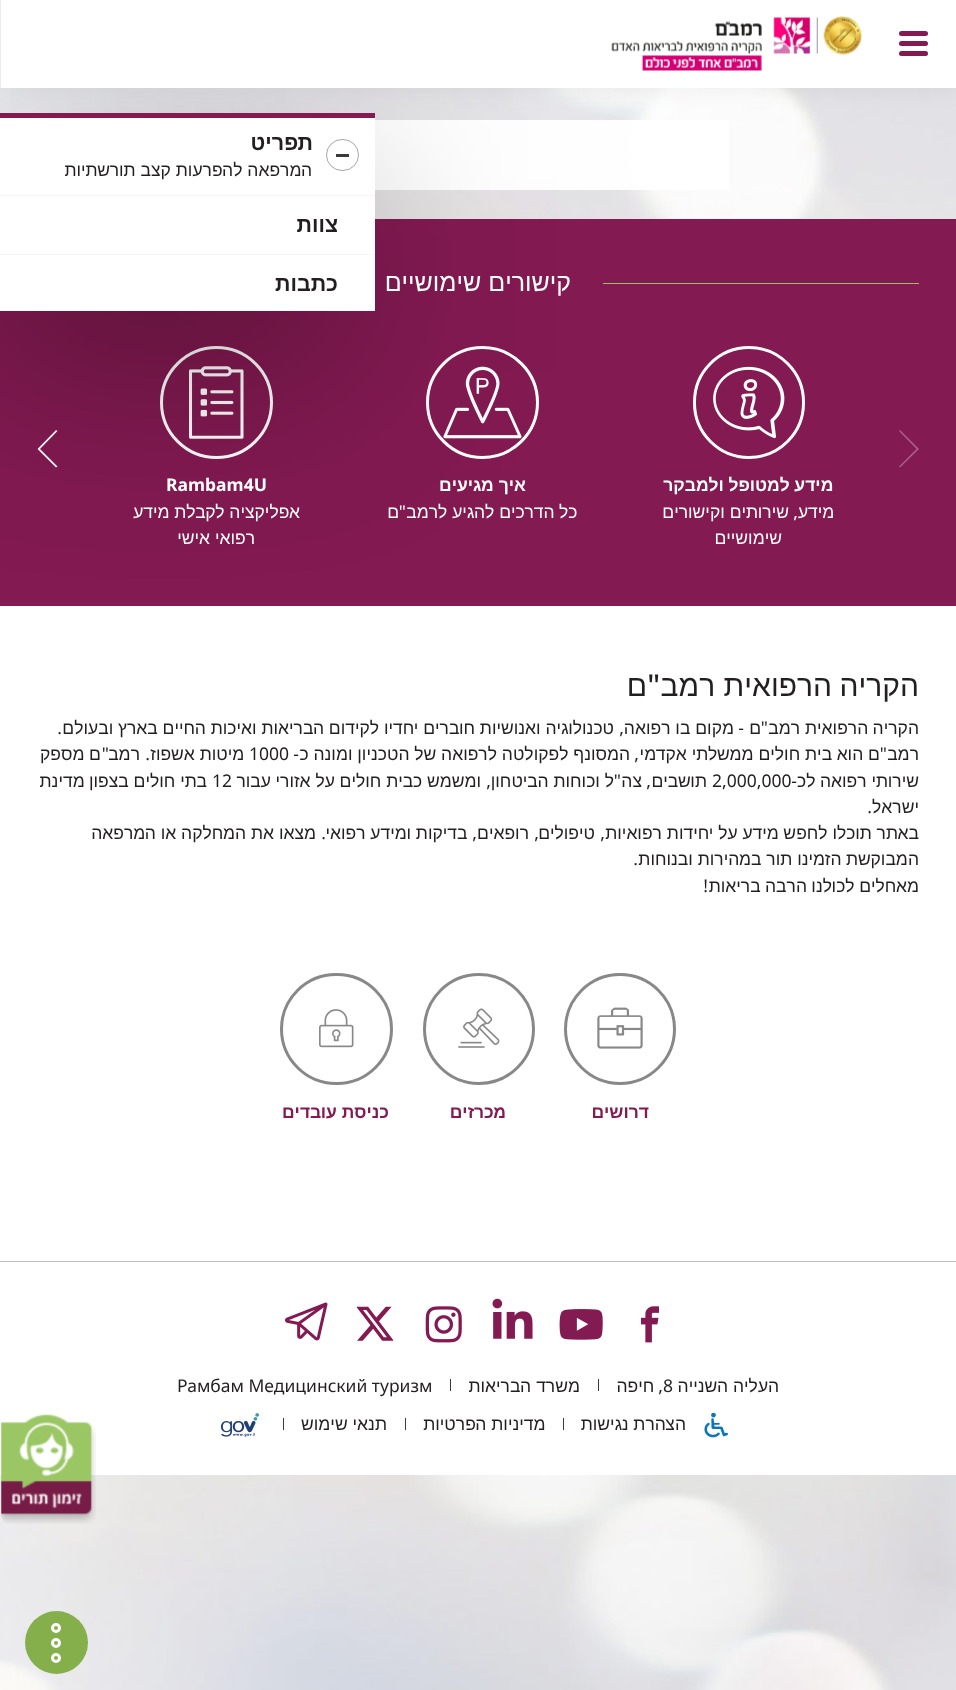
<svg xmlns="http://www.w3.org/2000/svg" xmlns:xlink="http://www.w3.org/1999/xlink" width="956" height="1690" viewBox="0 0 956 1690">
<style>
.cls-1{font:bold 21.5px Noto Sans Hebrew;direction:rtl;fill:#231f20}
.cls-2{font:17.5px Noto Sans Hebrew;direction:rtl;fill:#231f20}
.cls-3{font:25px Noto Sans Hebrew;direction:rtl;fill:#ffffff}
.cls-4{font:bold 17.5px Noto Sans Hebrew;direction:rtl;fill:#ffffff}
.cls-5{font:17.5px Noto Sans Hebrew;direction:rtl;fill:#ffffff}
.cls-6{font:17.5px Noto Sans;direction:rtl;fill:#ffffff}
.cls-7{font:bold 17.5px Noto Sans;fill:#ffffff}
.cls-8{font:30px Noto Sans Hebrew;direction:rtl;fill:#231f20}
.cls-9{font:500 30px Noto Sans;direction:rtl;fill:#231f20}
.cls-10{font:17.5px Noto Sans;direction:rtl;fill:#231f20}
.cls-11{font:17.5px Noto Sans;fill:#231f20}
.cls-12{font:bold 17.5px Noto Sans Hebrew;direction:rtl;fill:#831a52}
</style>
<rect width="100%" height="100%" fill="#ffffff"/>
<image xlink:href="image0.png" x="0" y="88" width="956" height="1602"/>
<rect fill="#ffffff" x="691" y="120" width="38" height="70"/>
<rect fill="#ffffff" fill-opacity="0.95" x="375" y="120" width="316" height="70"/>
<rect fill="#831a52" x="0" y="219" width="956" height="387"/>
<rect fill="#99c161" x="603" y="283" width="316" height="1"/>
<path fill="#ffffff" d="M37.5 449L56 430L57.5 431L40 449L57.5 466.5L56 467.5Z"/>
<circle fill="none" stroke="#ffffff" stroke-width="3" cx="482.5" cy="402.5" r="55"/>
<image xlink:href="image3.png" x="443" y="366" width="79" height="73"/>
<circle fill="none" stroke="#ffffff" stroke-width="3" cx="216.5" cy="402.5" r="55"/>
<image xlink:href="image4.png" x="189" y="366" width="55" height="73"/>
<rect fill="#ffffff" x="0" y="606" width="956" height="655"/>
<rect fill="#000000" fill-opacity="0.3" filter="blur(94px)" x="-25" y="175" width="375" height="199"/>
<rect fill="#831a52" x="0" y="113" width="375" height="5"/>
<rect fill="#ffffff" x="0" y="118" width="375" height="77"/>
<rect fill="#000000" fill-opacity="0.06" filter="blur(12.5px)" x="0" y="1" width="956" height="88"/>
<rect fill="#ffffff" x="1" y="0" width="955" height="88"/>
<rect fill="#831a52" x="899" y="31" width="29" height="5" rx="2.5"/>
<rect fill="#831a52" x="899" y="41" width="29" height="5" rx="2.5"/>
<rect fill="#831a52" x="899" y="51" width="29" height="5" rx="2.5"/>
<rect fill="#ededed" x="0" y="0" width="1" height="88"/>
<image xlink:href="image1.png" x="611" y="16" width="251" height="56"/>
<rect fill="none" stroke="#a8a8a8" x="326.5" y="139.5" width="32" height="31" rx="15.5"/>
<rect fill="#3a3a3a" x="336" y="154" width="13" height="3"/>
<rect fill="#ffffff" x="0" y="196" width="375" height="58"/>
<rect fill="#f5f5f5" x="0" y="195" width="375" height="1"/>
<rect fill="#ffffff" x="0" y="255" width="375" height="56"/>
<rect fill="#f5f5f5" x="0" y="254" width="375" height="1"/>
<path fill="#a85f86" d="M919 449L900 467.5L899 466.5L916.5 449L899 431L900 430Z"/>
<rect fill="none" stroke="#ffffff" stroke-width="3" x="694.5" y="347.5" width="109" height="110" rx="54.5"/>
<image xlink:href="image2.png" x="713" y="366" width="72" height="73"/>
<circle fill="none" stroke="#888888" stroke-width="3" cx="620" cy="1029" r="54.5"/>
<image xlink:href="image5.png" x="597" y="1007" width="46" height="42"/>
<circle fill="none" stroke="#888888" stroke-width="3" cx="479" cy="1029" r="54.5"/>
<image xlink:href="image6.png" x="458" y="1008" width="42" height="40"/>
<rect fill="none" stroke="#888888" stroke-width="3" x="281.5" y="974.5" width="110" height="109" rx="54.5"/>
<image xlink:href="image7.png" x="319" y="1009" width="35" height="39"/>
<rect fill="#ffffff" x="0" y="1262" width="956" height="213"/>
<rect fill="#bebebe" x="0" y="1261" width="956" height="1"/>
<image xlink:href="image8.png" x="640" y="1306" width="20" height="37"/>
<image xlink:href="image9.png" x="559" y="1309" width="44" height="31"/>
<image xlink:href="image10.png" x="492" y="1298" width="41" height="41"/>
<image xlink:href="image11.png" x="425" y="1306" width="37" height="37"/>
<image xlink:href="image12.png" x="356" y="1306" width="38" height="35"/>
<image xlink:href="image13.png" x="285" y="1302" width="43" height="39"/>
<rect fill="#3a3a3a" x="598" y="1379" width="1" height="12"/>
<rect fill="#3a3a3a" x="450" y="1379" width="1" height="12"/>
<image xlink:href="image14.png" x="704" y="1413" width="24" height="25"/>
<rect fill="#3a3a3a" x="563" y="1418" width="1" height="12"/>
<rect fill="#3a3a3a" x="405" y="1418" width="1" height="12"/>
<rect fill="#3a3a3a" x="283" y="1418" width="1" height="12"/>
<image xlink:href="image15.png" x="220" y="1413" width="40" height="24"/>
<circle fill="#85af4b" cx="56.5" cy="1642.5" r="31.5"/>
<circle fill="none" stroke="#ffffff" stroke-width="3" cx="56" cy="1643" r="3.5"/>
<circle fill="none" stroke="#ffffff" stroke-width="3" cx="56" cy="1628" r="3.5"/>
<circle fill="none" stroke="#ffffff" stroke-width="3" cx="56" cy="1658" r="3.5"/>
<image xlink:href="image16.png" x="1" y="1414" width="95" height="110"/>
<text class="cls-1" x="313" y="150">תפריט</text>
<text class="cls-2" x="312" y="176">המרפאה להפרעות קצב תורשתיות</text>
<text class="cls-1" x="338" y="232">צוות</text>
<text class="cls-1" x="338" y="291">כתבות</text>
<text class="cls-3" x="571" y="291">קישורים שימושיים</text>
<text class="cls-4" x="833" y="491">מידע למטופל ולמבקר</text>
<text class="cls-5" x="834" y="518">מידע</text>
<text class="cls-6" x="798" y="518">,</text>
<text class="cls-5" x="789" y="518">שירותים וקישורים</text>
<text class="cls-5" x="782" y="544">שימושיים</text>
<text class="cls-4" x="526" y="491">איך מגיעים</text>
<text class="cls-5" x="577" y="518">כל הדרכים להגיע לרמב</text>
<text class="cls-6" x="406" y="518">"</text>
<text class="cls-5" x="399" y="518">ם</text>
<text class="cls-7" x="166" y="491">Rambam4U</text>
<text class="cls-5" x="300" y="518">אפליקציה לקבלת מידע</text>
<text class="cls-5" x="255" y="544">רפואי אישי</text>
<text class="cls-8" x="919" y="696">הקריה הרפואית רמב</text>
<text class="cls-9" x="660" y="696">"</text>
<text class="cls-8" x="647" y="696">ם</text>
<text class="cls-2" x="919" y="734">הקריה הרפואית רמב</text>
<text class="cls-10" x="768" y="734">"</text>
<text class="cls-2" x="761" y="734">ם</text>
<text class="cls-10" x="744" y="734">-</text>
<text class="cls-2" x="734" y="734">מקום בו רפואה</text>
<text class="cls-2" x="614" y="734">טכנולוגיה ואנושיות חוברים יחדיו לקידום הבריאות ואיכות החיים בארץ ובעולם</text>
<text class="cls-10" x="624" y="734">,</text>
<text class="cls-10" x="62" y="734">.</text>
<text class="cls-2" x="919" y="760">רמב</text>
<text class="cls-10" x="887" y="760">"</text>
<text class="cls-2" x="880" y="760">ם הוא בית חולים ממשלתי אקדמי</text>
<text class="cls-2" x="630" y="760">המסונף לפקולטה לרפואה של הטכניון ומונה כ</text>
<text class="cls-10" x="299" y="760">-</text>
<text class="cls-11" x="249" y="760">1000</text>
<text class="cls-2" x="244" y="760">מיטות אשפוז</text>
<text class="cls-2" x="140" y="760">רמב</text>
<text class="cls-10" x="109" y="760">"</text>
<text class="cls-2" x="101" y="760">ם מספק</text>
<text class="cls-10" x="639" y="760">,</text>
<text class="cls-10" x="150" y="760">.</text>
<text class="cls-2" x="919" y="787">שירותי רפואה לכ</text>
<text class="cls-10" x="797" y="787">-</text>
<text class="cls-11" x="712" y="787">2,000,000</text>
<text class="cls-2" x="707" y="787">תושבים</text>
<text class="cls-2" x="642" y="787">צה</text>
<text class="cls-10" x="621" y="787">"</text>
<text class="cls-2" x="614" y="787">ל וכוחות הביטחון</text>
<text class="cls-2" x="481" y="787">ומשמש כבית חולים על אזורי עבור</text>
<text class="cls-11" x="212" y="787">12</text>
<text class="cls-2" x="207" y="787">בתי חולים בצפון מדינת</text>
<text class="cls-10" x="651" y="787">,</text>
<text class="cls-10" x="491" y="787">,</text>
<text class="cls-2" x="919" y="813">ישראל</text>
<text class="cls-10" x="872" y="813">.</text>
<text class="cls-2" x="919" y="839">באתר תוכלו לחפש מידע על יחידות רפואיות</text>
<text class="cls-10" x="605" y="839">,</text>
<text class="cls-2" x="595" y="839">טיפולים</text>
<text class="cls-10" x="539" y="839">,</text>
<text class="cls-2" x="529" y="839">רופאים</text>
<text class="cls-10" x="477" y="839">,</text>
<text class="cls-2" x="467" y="839">בדיקות ומידע רפואי</text>
<text class="cls-10" x="326" y="839">.</text>
<text class="cls-2" x="316" y="839">מצאו את המחלקה או המרפאה</text>
<text class="cls-2" x="919" y="865">המבוקשת הזמינו תור במהירות ובנוחות</text>
<text class="cls-10" x="638" y="865">.</text>
<text class="cls-2" x="919" y="892">מאחלים לכולנו הרבה בריאות</text>
<text class="cls-10" x="708" y="892">!</text>
<text class="cls-12" x="649" y="1118">דרושים</text>
<text class="cls-12" x="506" y="1118">מכרזים</text>
<text class="cls-12" x="389" y="1118">כניסת עובדים</text>
<text class="cls-2" x="779" y="1392">העליה השנייה</text>
<text class="cls-11" x="663" y="1392">8</text>
<text class="cls-2" x="654" y="1392">חיפה</text>
<text class="cls-10" x="663" y="1392">,</text>
<text class="cls-2" x="580" y="1392">משרד</text>
<text class="cls-2" x="531" y="1392">הבריאות</text>
<text class="cls-11" x="177" y="1392">Рамбам Медицинский туризм</text>
<text class="cls-2" x="686" y="1430">הצהרת נגישות</text>
<text class="cls-2" x="545" y="1430">מדיניות הפרטיות</text>
<text class="cls-2" x="387" y="1430">תנאי שימוש</text>
</svg>
